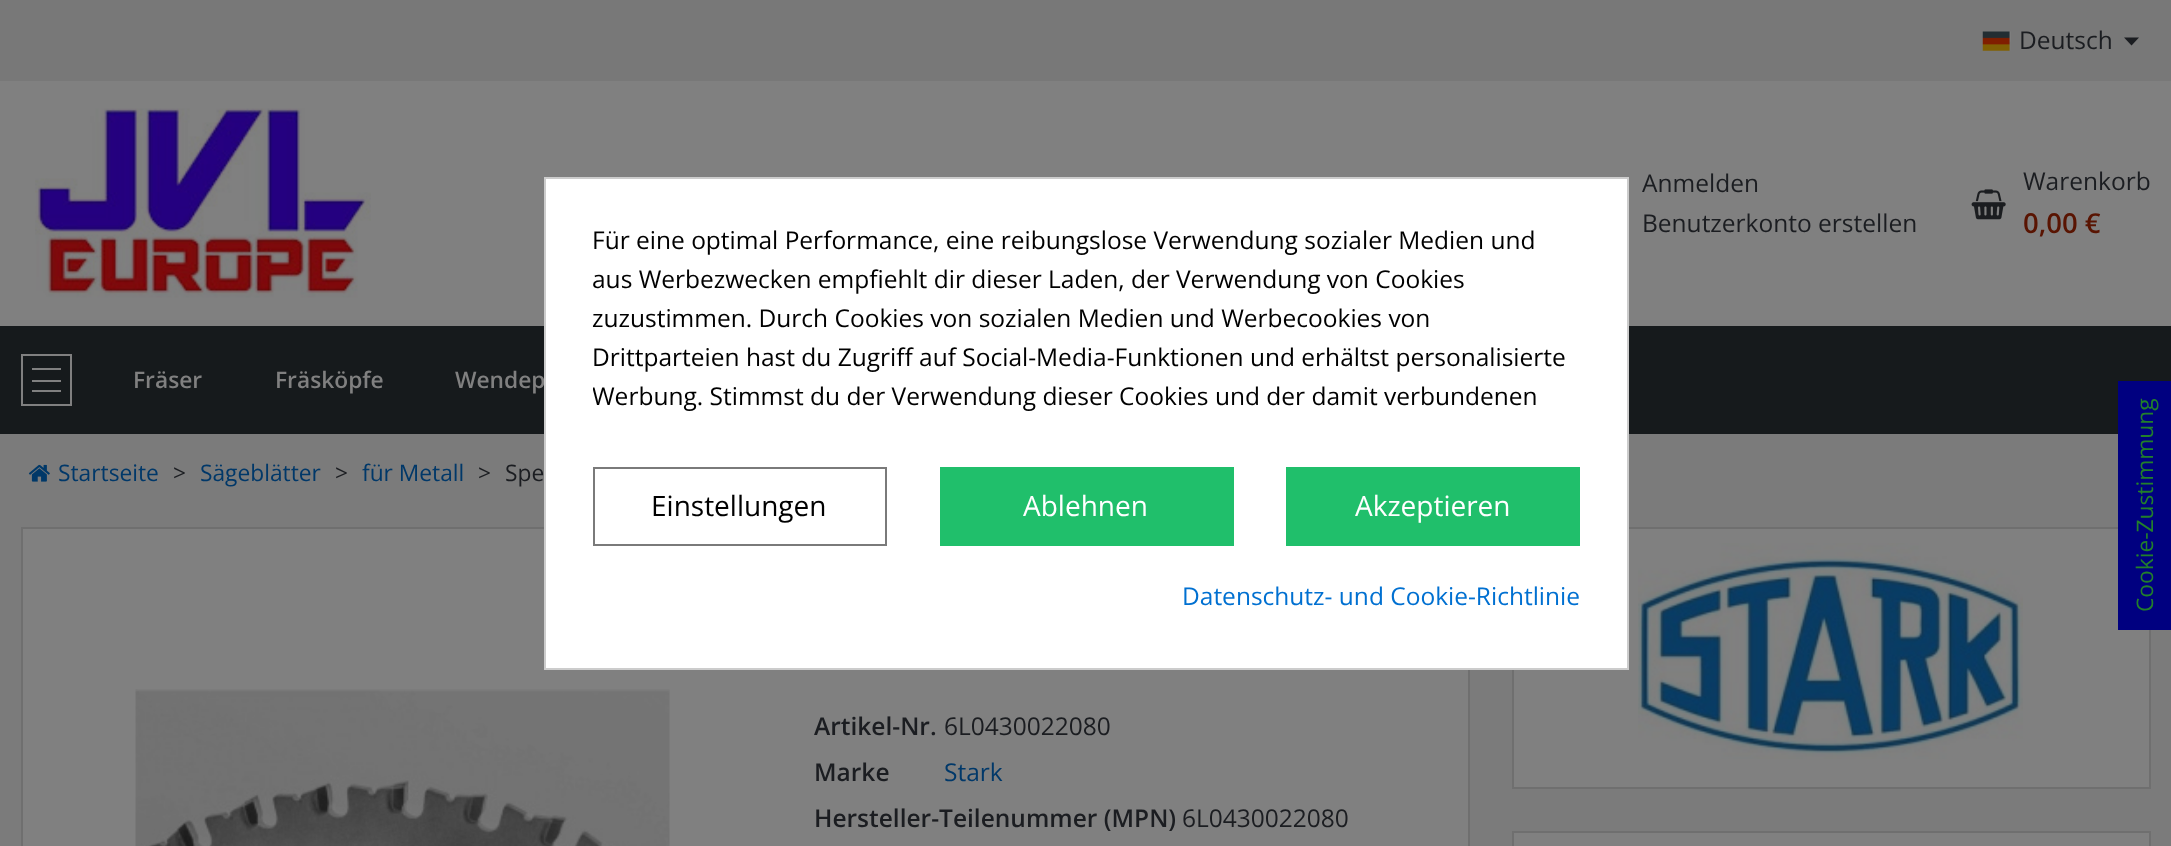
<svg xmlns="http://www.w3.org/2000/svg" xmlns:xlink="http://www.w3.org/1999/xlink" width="2171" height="846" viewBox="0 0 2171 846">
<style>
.cls-1{font:24.5px Open Sans;fill:#1b1d21}
.cls-2{font:600 27.5px Open Sans;fill:#591402}
.cls-3{font:600 22.75px Open Sans;fill:#808080}
.cls-4{font:22.75px Open Sans;fill:#003869}
.cls-5{font:22.75px Open Sans;fill:#1b1d21}
.cls-6{font:600 24.5px Open Sans;fill:#1b1d21}
.cls-7{font:24.5px Open Sans;fill:#003869}
.cls-8{font:24.5px Open Sans;fill:#000000}
.cls-9{font:28px Open Sans;fill:#000000}
.cls-10{font:28px Open Sans;fill:#ffffff}
.cls-11{font:24.5px Open Sans;fill:#0070d1}
.cls-12{font:22.75px Open Sans;fill:#22802a}
</style>
<defs>
<clipPath id="clip1"><rect x="593" y="221" width="987" height="211"/></clipPath>
</defs>
<rect width="100%" height="100%" fill="#808080"/>
<rect fill="#787878" x="0" y="0" width="2171" height="81"/>
<image xlink:href="image0.png" x="1982" y="31" width="29" height="20"/>
<path fill="#1b1d21" d="M2124 37.5H2139L2131.5 45.5Z"/>
<image xlink:href="image1.png" x="35" y="108" width="336" height="190"/>
<image xlink:href="image2.png" x="1971" y="189" width="35" height="31"/>
<rect fill="#161a1c" x="0" y="326" width="2171" height="108"/>
<rect fill="none" stroke="#808080" stroke-width="2" x="22" y="355" width="49" height="50"/>
<rect fill="#808080" x="32" y="368" width="29" height="2"/>
<rect fill="#808080" x="32" y="380" width="29" height="2"/>
<rect fill="#808080" x="32" y="390" width="29" height="2"/>
<rect fill="#7b7b7b" x="0" y="434" width="2171" height="412"/>
<image xlink:href="image3.png" x="28" y="464" width="22" height="18"/>
<rect fill="#808080" stroke="#6f6f6f" stroke-width="2" x="22" y="528" width="1447" height="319"/>
<image xlink:href="image4.png" x="135" y="689" width="535" height="157"/>
<rect fill="#808080" stroke="#6f6f6f" stroke-width="2" x="1513" y="528" width="637" height="260"/>
<image xlink:href="image5.png" x="1638" y="543" width="385" height="216"/>
<rect fill="#808080" stroke="#6f6f6f" stroke-width="2" x="1513" y="832" width="637" height="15"/>
<rect fill="#000080" x="2118" y="381" width="53" height="249"/>
<text class="cls-1" x="2019" y="49">Deutsch</text>
<text class="cls-1"><tspan x="1642" y="192">Anmelden</tspan><tspan x="1642" y="232">Benutzerkonto erstellen</tspan></text>
<text class="cls-1" x="2023" y="190">Warenkorb</text>
<text class="cls-2" x="2023" y="233">0,00 €</text>
<text class="cls-3" x="133" y="388">Fräser</text>
<text class="cls-3" x="275" y="388">Fräsköpfe</text>
<text class="cls-3" x="455" y="388">Wendep</text>
<text class="cls-4" x="58" y="481">Startseite</text>
<text class="cls-5" x="173" y="481">&gt;</text>
<text class="cls-4" x="200" y="481">Sägeblätter</text>
<text class="cls-5" x="335" y="481">&gt;</text>
<text class="cls-4" x="362" y="481">für Metall</text>
<text class="cls-5" x="478" y="481">&gt;</text>
<text class="cls-5" x="505" y="481">Spe</text>
<text class="cls-6" x="814" y="735">Artikel-Nr.</text>
<text class="cls-1" x="944" y="735">6L0430022080</text>
<text class="cls-6" x="814" y="781">Marke</text>
<text class="cls-7" x="944" y="781">Stark</text>
<text class="cls-6" x="814" y="827">Hersteller-Teilenummer (MPN)</text>
<text class="cls-1" x="1182" y="827">6L0430022080</text>
<rect fill="#ffffff" stroke="#cccccc" stroke-width="2" x="545" y="178" width="1083" height="491"/>
<text class="cls-8"><tspan x="592" y="249">Für eine optimal Performance, eine reibungslose Verwendung sozialer Medien und</tspan><tspan x="592" y="288">aus Werbezwecken empfiehlt dir dieser Laden, der Verwendung von Cookies</tspan><tspan x="592" y="327">zuzustimmen. Durch Cookies von sozialen Medien und Werbecookies von</tspan><tspan x="592" y="366">Drittparteien hast du Zugriff auf Social-Media-Funktionen und erhältst personalisierte</tspan></text>
<g clip-path="url(#clip1)">
<text class="cls-8" x="592" y="405">Werbung. Stimmst du der Verwendung dieser Cookies und der damit verbundenen</text>
</g>
<rect fill="none" stroke="#7a7a7a" stroke-width="2" x="594" y="468" width="292" height="77"/>
<text class="cls-9" x="651" y="516">Einstellungen</text>
<rect fill="#20bf6b" x="940" y="467" width="294" height="79"/>
<text class="cls-10" x="1023" y="516">Ablehnen</text>
<rect fill="#20bf6b" x="1286" y="467" width="294" height="79"/>
<text class="cls-10" x="1355" y="516">Akzeptieren</text>
<text class="cls-11" x="1182" y="605">Datenschutz- und Cookie-Richtlinie</text>
<text class="cls-12" x="2153" y="612" transform="rotate(-90 2153 612)">Cookie-Zustimmung</text>
</svg>
